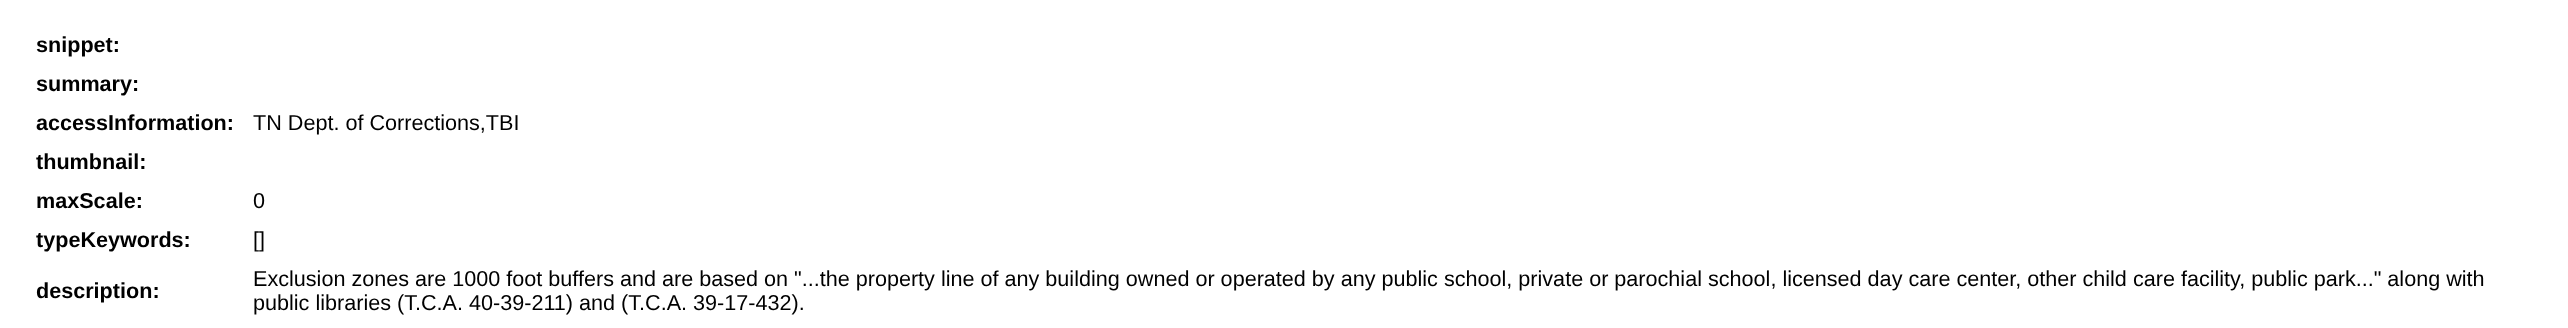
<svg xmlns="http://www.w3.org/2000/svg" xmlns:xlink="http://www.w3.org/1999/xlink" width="2568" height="328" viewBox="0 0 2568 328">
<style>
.cls-1{font:bold 21.6px Liberation Sans;fill:#000000}
.cls-2{font:21.6px Liberation Sans;fill:#000000}
</style>
<rect width="100%" height="100%" fill="#ffffff"/>
<text class="cls-1"><tspan x="36" y="52">snippet:</tspan><tspan x="36" y="91">summary:</tspan><tspan x="36" y="130">accessInformation:</tspan></text>
<text class="cls-2" x="253" y="130">TN Dept. of Corrections,TBI</text>
<text class="cls-1"><tspan x="36" y="169">thumbnail:</tspan><tspan x="36" y="208">maxScale:</tspan></text>
<text class="cls-2" x="253" y="208">0</text>
<text class="cls-1" x="36" y="247">typeKeywords:</text>
<text class="cls-2" x="253" y="247">[]</text>
<text class="cls-1" x="36" y="298">description:</text>
<text class="cls-2"><tspan x="253" y="286">Exclusion zones are 1000 foot buffers and are based on "...the property line of any building owned or operated by any public school, private or parochial school, licensed day care center, other child care facility, public park..." along with</tspan><tspan x="253" y="310">public libraries (T.C.A. 40-39-211) and (T.C.A. 39-17-432).</tspan></text>
</svg>
